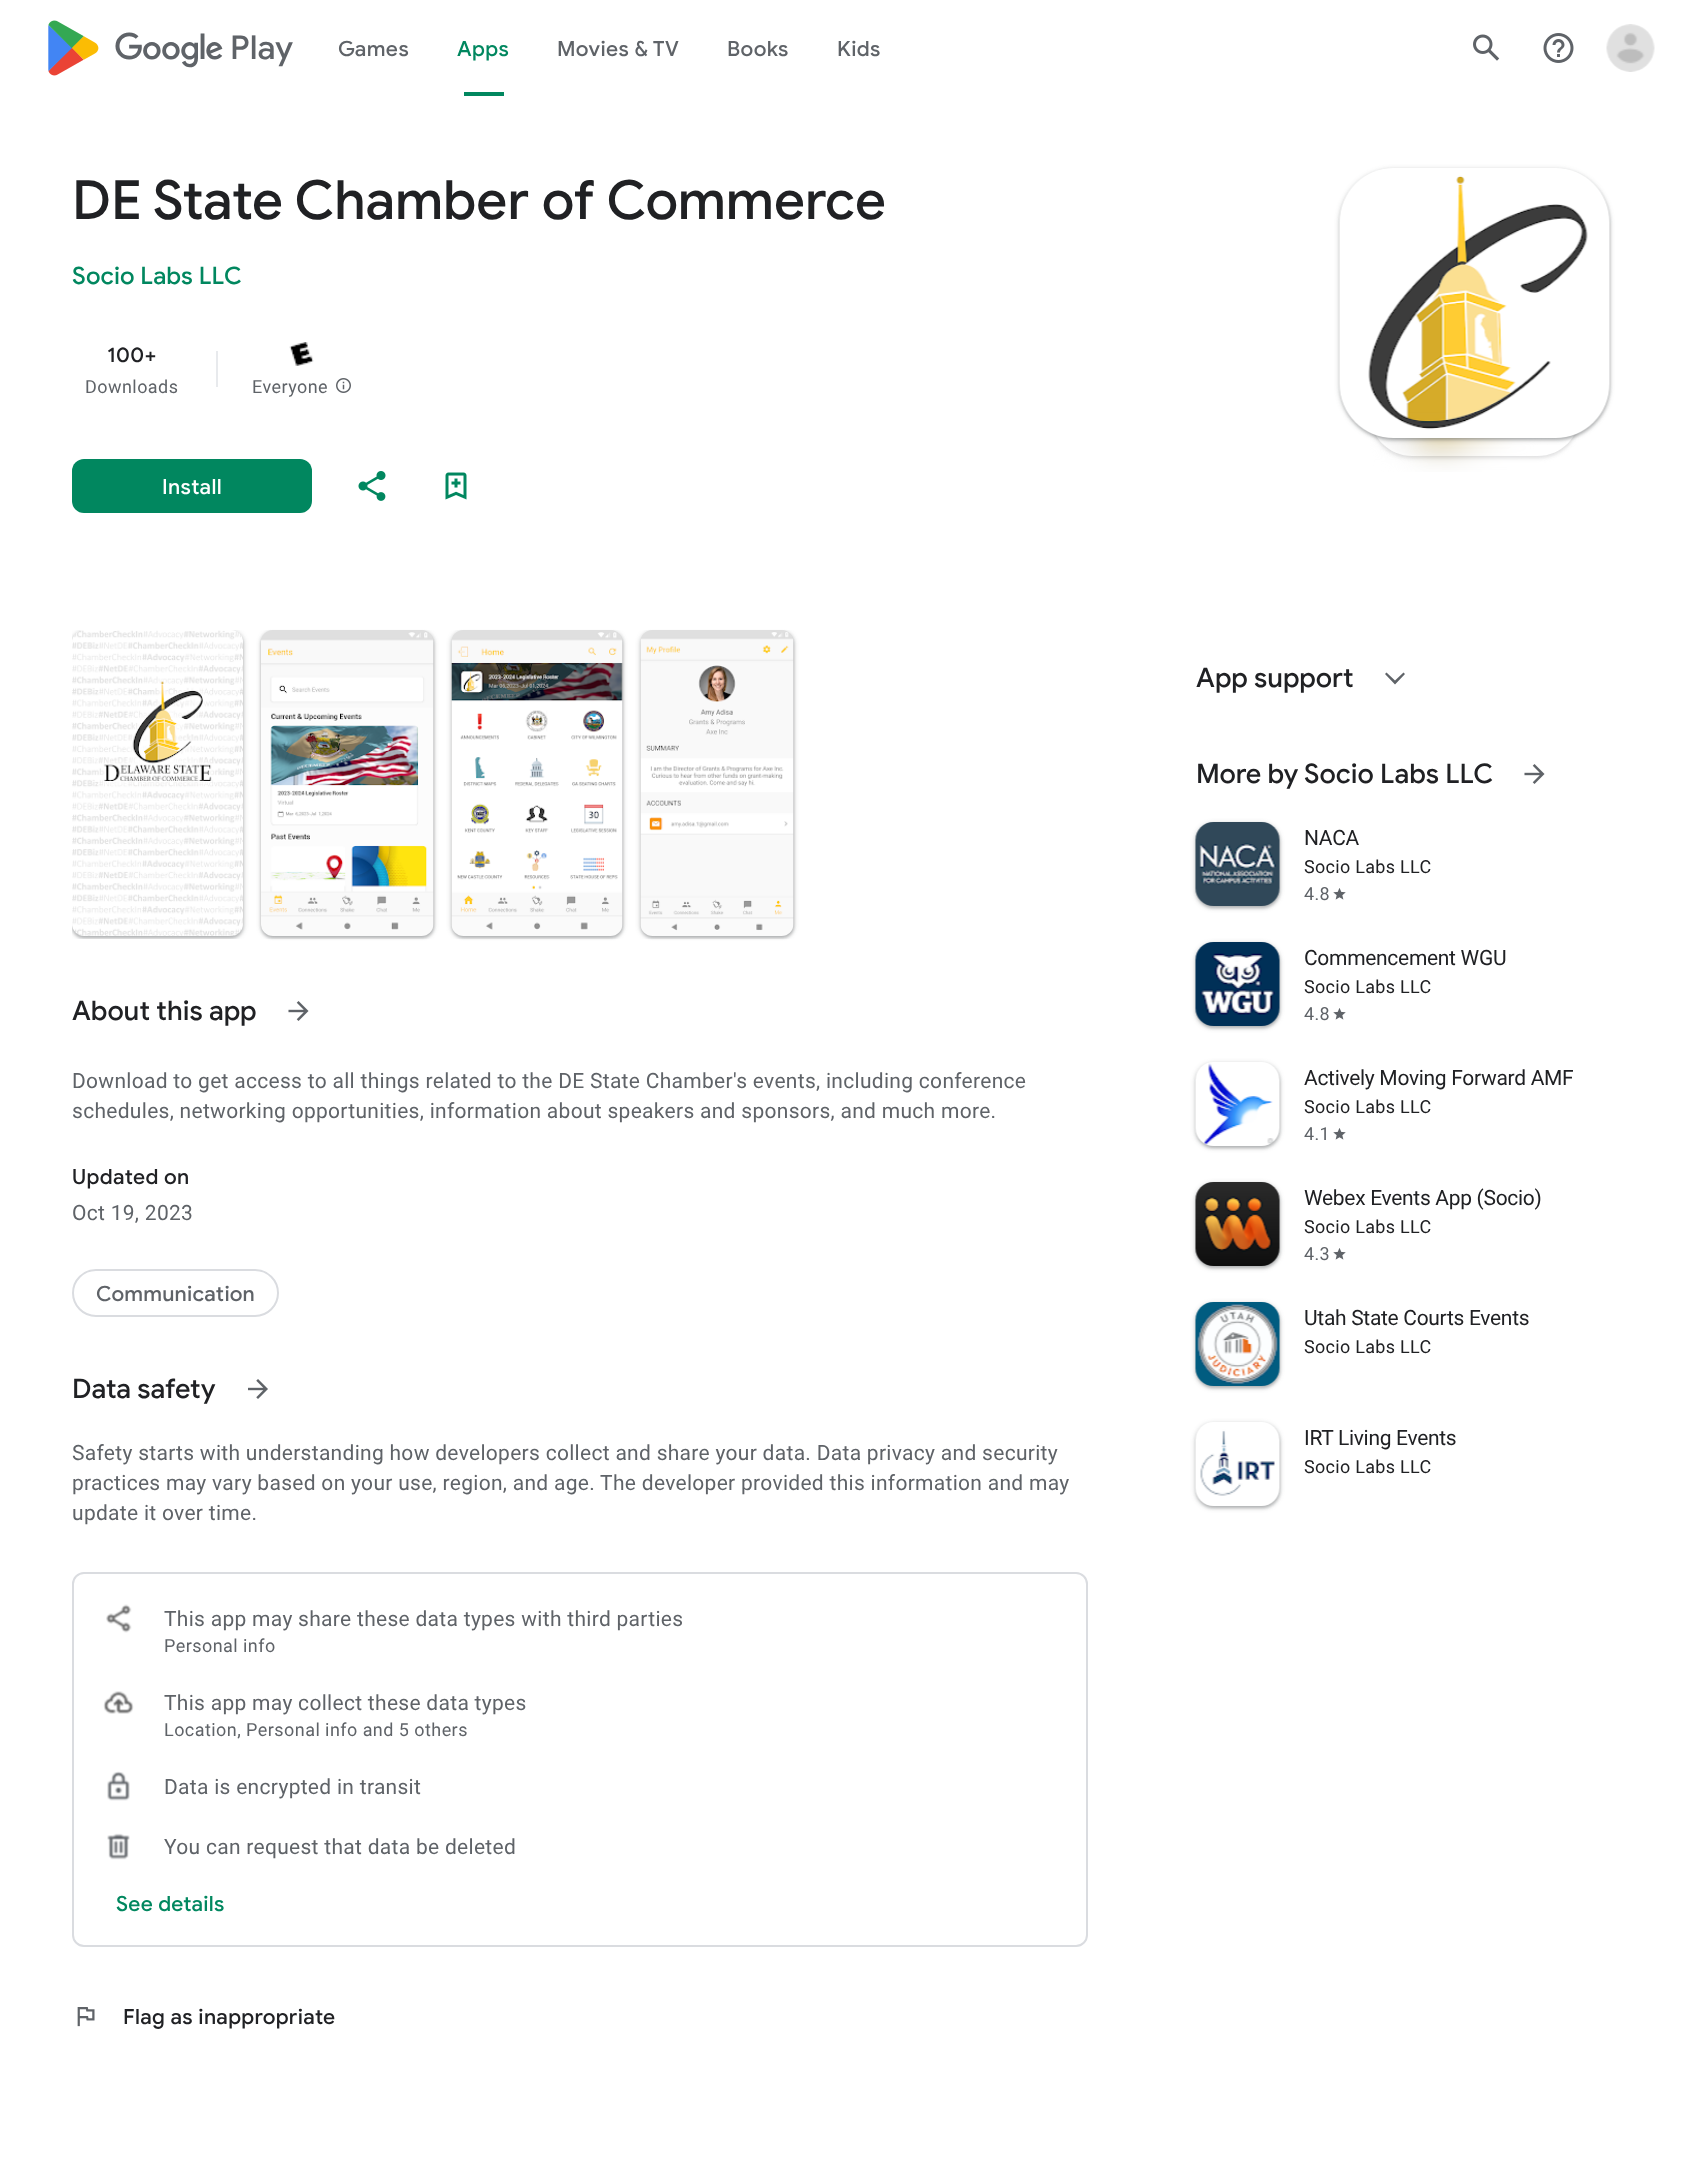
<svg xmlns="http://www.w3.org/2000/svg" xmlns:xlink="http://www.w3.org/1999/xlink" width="1681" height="2184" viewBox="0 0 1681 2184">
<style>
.cls-1{font:500 33px Google Sans;fill:#5f6368}
.cls-2{font:500 21px Google Sans;letter-spacing:0.4px;fill:#5f6368}
.cls-3{font:500 21px Google Sans;letter-spacing:0.4px;fill:#01875f}
.cls-4{font:500 54px Google Sans;fill:#202124}
.cls-5{font:500 24px Google Sans;letter-spacing:0.1px;fill:#01875f}
.cls-6{font:500 21px Google Sans;letter-spacing:0.4px;fill:#202124}
.cls-7{font:18px Roboto;letter-spacing:0.45px;fill:#5f6368}
.cls-8{font:500 21px Google Sans;letter-spacing:0.4px;fill:#ffffff}
.cls-9{font:500 27px Google Sans;fill:#202124}
.cls-10{font:21px Roboto;letter-spacing:0.3px;fill:#5f6368}
.cls-11{font:500 21px Google Sans;letter-spacing:0.25px;fill:#5f6368}
.cls-12{font:500 21px Google Sans;letter-spacing:0.25px;fill:#01875f}
.cls-13{font:21px Roboto;letter-spacing:-0.3px;fill:#202124}
.cls-14{font:18px Roboto;letter-spacing:0.3px;fill:#202124}
.cls-15{font:18px Roboto;letter-spacing:0.3px;fill:#5f6368}
</style>
<defs>
<clipPath id="clip1"><path d="M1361 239H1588V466H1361ZM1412 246H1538C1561 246 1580 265 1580 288V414C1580 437 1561 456 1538 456H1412C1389 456 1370 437 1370 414V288C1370 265 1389 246 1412 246Z" clip-rule="evenodd"/></clipPath>
<clipPath id="clip2"><path d="M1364 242H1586V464H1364ZM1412 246H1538C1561 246 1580 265 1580 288V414C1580 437 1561 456 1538 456H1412C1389 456 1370 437 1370 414V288C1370 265 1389 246 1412 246Z" clip-rule="evenodd"/></clipPath>
<clipPath id="clip3"><rect x="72" y="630" width="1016" height="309"/></clipPath>
</defs>
<rect width="100%" height="100%" fill="#ffffff"/>
<image xlink:href="image0.png" x="48" y="20" width="51" height="56"/>
<rect fill="#01875f" x="464" y="92" width="40" height="4"/>
<image xlink:href="image1.png" x="1473" y="34" width="27" height="27"/>
<image xlink:href="image2.png" x="1543" y="33" width="31" height="30"/>
<image xlink:href="image3.png" x="1606" y="24" width="49" height="48"/>
<rect fill="#e8eaed" x="216" y="351" width="2" height="36"/>
<image xlink:href="image4.png" x="289" y="342" width="25" height="24"/>
<image xlink:href="image5.png" x="336" y="378" width="15" height="15"/>
<g clip-path="url(#clip1)">
<rect fill="#9ea0a1" fill-opacity="0.15" filter="blur(2px)" x="1368" y="246" width="213" height="213" rx="44"/>
</g>
<g clip-path="url(#clip2)">
<rect fill="#9ea0a1" fill-opacity="0.3" filter="blur(1.5px)" x="1370" y="248" width="210" height="210" rx="42"/>
</g>
<image xlink:href="image7.png" x="1370" y="431" width="211" height="41"/>
<rect fill="#3c4043" fill-opacity="0.15" filter="blur(2px)" x="1338" y="168" width="273" height="273" rx="56"/>
<rect fill="#3c4043" fill-opacity="0.3" filter="blur(1.5px)" x="1340" y="170" width="270" height="270" rx="54"/>
<image xlink:href="image6.png" x="1339" y="168" width="271" height="270"/>
<rect fill="#01875f" x="72" y="459" width="240" height="54" rx="12"/>
<image xlink:href="image8.png" x="358" y="471" width="28" height="30"/>
<image xlink:href="image9.png" x="445" y="472" width="22" height="28"/>
<g clip-path="url(#clip3)">
<rect fill="#3c4043" fill-opacity="0.15" filter="blur(2px)" x="71" y="630" width="174" height="309" rx="14"/>
<rect fill="#3c4043" fill-opacity="0.3" filter="blur(1.5px)" x="72" y="632" width="171" height="306" rx="12"/>
</g>
<image xlink:href="image10.png" x="72" y="630" width="171" height="306"/>
<g clip-path="url(#clip3)">
<rect fill="#3c4043" fill-opacity="0.15" filter="blur(2px)" x="260" y="630" width="175" height="309" rx="14"/>
</g>
<rect fill="#3c4043" fill-opacity="0.3" filter="blur(1.5px)" x="261" y="632" width="173" height="306" rx="12"/>
<image xlink:href="image11.png" x="261" y="630" width="173" height="306"/>
<g clip-path="url(#clip3)">
<rect fill="#3c4043" fill-opacity="0.15" filter="blur(2px)" x="450" y="630" width="174" height="309" rx="14"/>
</g>
<rect fill="#3c4043" fill-opacity="0.3" filter="blur(1.5px)" x="452" y="632" width="171" height="306" rx="12"/>
<image xlink:href="image12.png" x="451" y="630" width="172" height="306"/>
<g clip-path="url(#clip3)">
<rect fill="#3c4043" fill-opacity="0.15" filter="blur(2px)" x="639" y="630" width="156" height="309" rx="14"/>
</g>
<rect fill="#3c4043" fill-opacity="0.3" filter="blur(1.5px)" x="641" y="632" width="153" height="306" rx="12"/>
<image xlink:href="image13.png" x="640" y="630" width="154" height="306"/>
<image xlink:href="image14.png" x="288" y="1001" width="21" height="20"/>
<rect fill="none" stroke="#dadce0" stroke-width="2" x="73" y="1270" width="205" height="46" rx="23"/>
<image xlink:href="image15.png" x="248" y="1379" width="20" height="20"/>
<rect fill="none" stroke="#dadce0" stroke-width="2" x="73" y="1573" width="1014" height="373" rx="11"/>
<image xlink:href="image16.png" x="106" y="1604" width="26" height="29"/>
<image xlink:href="image17.png" x="103" y="1691" width="31" height="23"/>
<image xlink:href="image18.png" x="107" y="1771" width="23" height="30"/>
<image xlink:href="image19.png" x="107" y="1833" width="23" height="27"/>
<image xlink:href="image20.png" x="77" y="2007" width="18" height="20"/>
<path fill="#5f6368" d="M1386.5 672.5L1385 674L1395 684.5L1405 674L1403.5 672.5L1395 680.5Z"/>
<image xlink:href="image14.png" x="1524" y="764" width="21" height="20"/>
<rect fill="#3c4043" fill-opacity="0.15" filter="blur(2px)" x="1194" y="822" width="87" height="87" rx="20"/>
<rect fill="#3c4043" fill-opacity="0.3" filter="blur(1.5px)" x="1196" y="824" width="84" height="84" rx="18"/>
<image xlink:href="image21.png" x="1195" y="822" width="85" height="84"/>
<image xlink:href="image22.png" x="1333" y="888" width="13" height="12"/>
<rect fill="#3c4043" fill-opacity="0.15" filter="blur(2px)" x="1194" y="942" width="87" height="87" rx="20"/>
<rect fill="#3c4043" fill-opacity="0.3" filter="blur(1.5px)" x="1196" y="944" width="84" height="84" rx="18"/>
<image xlink:href="image23.png" x="1195" y="942" width="85" height="84"/>
<image xlink:href="image22.png" x="1333" y="1008" width="13" height="12"/>
<rect fill="#3c4043" fill-opacity="0.15" filter="blur(2px)" x="1194" y="1062" width="87" height="87" rx="20"/>
<rect fill="#3c4043" fill-opacity="0.3" filter="blur(1.5px)" x="1196" y="1064" width="84" height="84" rx="18"/>
<image xlink:href="image24.png" x="1195" y="1062" width="85" height="84"/>
<image xlink:href="image22.png" x="1333" y="1128" width="13" height="12"/>
<rect fill="#3c4043" fill-opacity="0.15" filter="blur(2px)" x="1194" y="1182" width="87" height="87" rx="20"/>
<rect fill="#3c4043" fill-opacity="0.3" filter="blur(1.5px)" x="1196" y="1184" width="84" height="84" rx="18"/>
<image xlink:href="image25.png" x="1195" y="1182" width="85" height="84"/>
<image xlink:href="image22.png" x="1333" y="1248" width="13" height="12"/>
<rect fill="#3c4043" fill-opacity="0.15" filter="blur(2px)" x="1194" y="1302" width="87" height="87" rx="20"/>
<rect fill="#3c4043" fill-opacity="0.3" filter="blur(1.5px)" x="1196" y="1304" width="84" height="84" rx="18"/>
<image xlink:href="image26.png" x="1195" y="1302" width="85" height="84"/>
<rect fill="#3c4043" fill-opacity="0.15" filter="blur(2px)" x="1194" y="1422" width="87" height="87" rx="20"/>
<rect fill="#3c4043" fill-opacity="0.3" filter="blur(1.5px)" x="1196" y="1424" width="84" height="84" rx="18"/>
<image xlink:href="image27.png" x="1195" y="1422" width="85" height="84"/>
<text class="cls-1" x="114" y="59">google_logo Play</text>
<text class="cls-2" x="338" y="56">Games</text>
<text class="cls-3" x="457" y="56">Apps</text>
<text class="cls-2" x="557" y="56">Movies &amp; TV</text>
<text class="cls-2" x="727" y="56">Books</text>
<text class="cls-2" x="837" y="56">Kids</text>
<text class="cls-4" x="72" y="219">DE State Chamber of Commerce</text>
<text class="cls-5" x="72" y="284">Socio Labs LLC</text>
<text class="cls-6" x="107" y="362">100+</text>
<text class="cls-7" x="85" y="393">Downloads</text>
<text class="cls-7" x="252" y="393">Everyone</text>
<text class="cls-8" x="162" y="494">Install</text>
<text class="cls-9" x="72" y="1020">About this app</text>
<text class="cls-10"><tspan x="72" y="1088">Download to get access to all things related to the DE State Chamber's events, including conference</tspan><tspan x="72" y="1118">schedules, networking opportunities, information about speakers and sponsors, and much more.</tspan></text>
<text class="cls-6" x="72" y="1184">Updated on</text>
<text class="cls-10" x="72" y="1220">Oct 19, 2023</text>
<text class="cls-11" x="96" y="1301">Communication</text>
<text class="cls-9" x="72" y="1398">Data safety</text>
<text class="cls-10"><tspan x="72" y="1460">Safety starts with understanding how developers collect and share your data. Data privacy and security</tspan><tspan x="72" y="1490">practices may vary based on your use, region, and age. The developer provided this information and may</tspan><tspan x="72" y="1520">update it over time.</tspan></text>
<text class="cls-10" x="164" y="1626">This app may share these data types with third parties</text>
<text class="cls-7" x="164" y="1652">Personal info</text>
<text class="cls-10" x="164" y="1710">This app may collect these data types</text>
<text class="cls-7" x="164" y="1736">Location, Personal info and 5 others</text>
<text class="cls-10" x="164" y="1794">Data is encrypted in transit</text>
<text class="cls-10" x="164" y="1854">You can request that data be deleted</text>
<text class="cls-12" x="116" y="1911">See details</text>
<text class="cls-6" x="123" y="2024">Flag as inappropriate</text>
<text class="cls-9" x="1196" y="687">App support</text>
<text class="cls-9" x="1196" y="783">More by Socio Labs LLC</text>
<text class="cls-13" x="1304" y="845">NACA</text>
<text class="cls-14" x="1304" y="873">Socio Labs LLC</text>
<text class="cls-15" x="1304" y="900">4.8</text>
<text class="cls-13" x="1304" y="965">Commencement WGU</text>
<text class="cls-14" x="1304" y="993">Socio Labs LLC</text>
<text class="cls-15" x="1304" y="1020">4.8</text>
<text class="cls-13" x="1304" y="1085">Actively Moving Forward AMF</text>
<text class="cls-14" x="1304" y="1113">Socio Labs LLC</text>
<text class="cls-15" x="1304" y="1140">4.1</text>
<text class="cls-13" x="1304" y="1205">Webex Events App (Socio)</text>
<text class="cls-14" x="1304" y="1233">Socio Labs LLC</text>
<text class="cls-15" x="1304" y="1260">4.3</text>
<text class="cls-13" x="1304" y="1325">Utah State Courts Events</text>
<text class="cls-14" x="1304" y="1353">Socio Labs LLC</text>
<text class="cls-13" x="1304" y="1445">IRT Living Events</text>
<text class="cls-14" x="1304" y="1473">Socio Labs LLC</text>
</svg>
